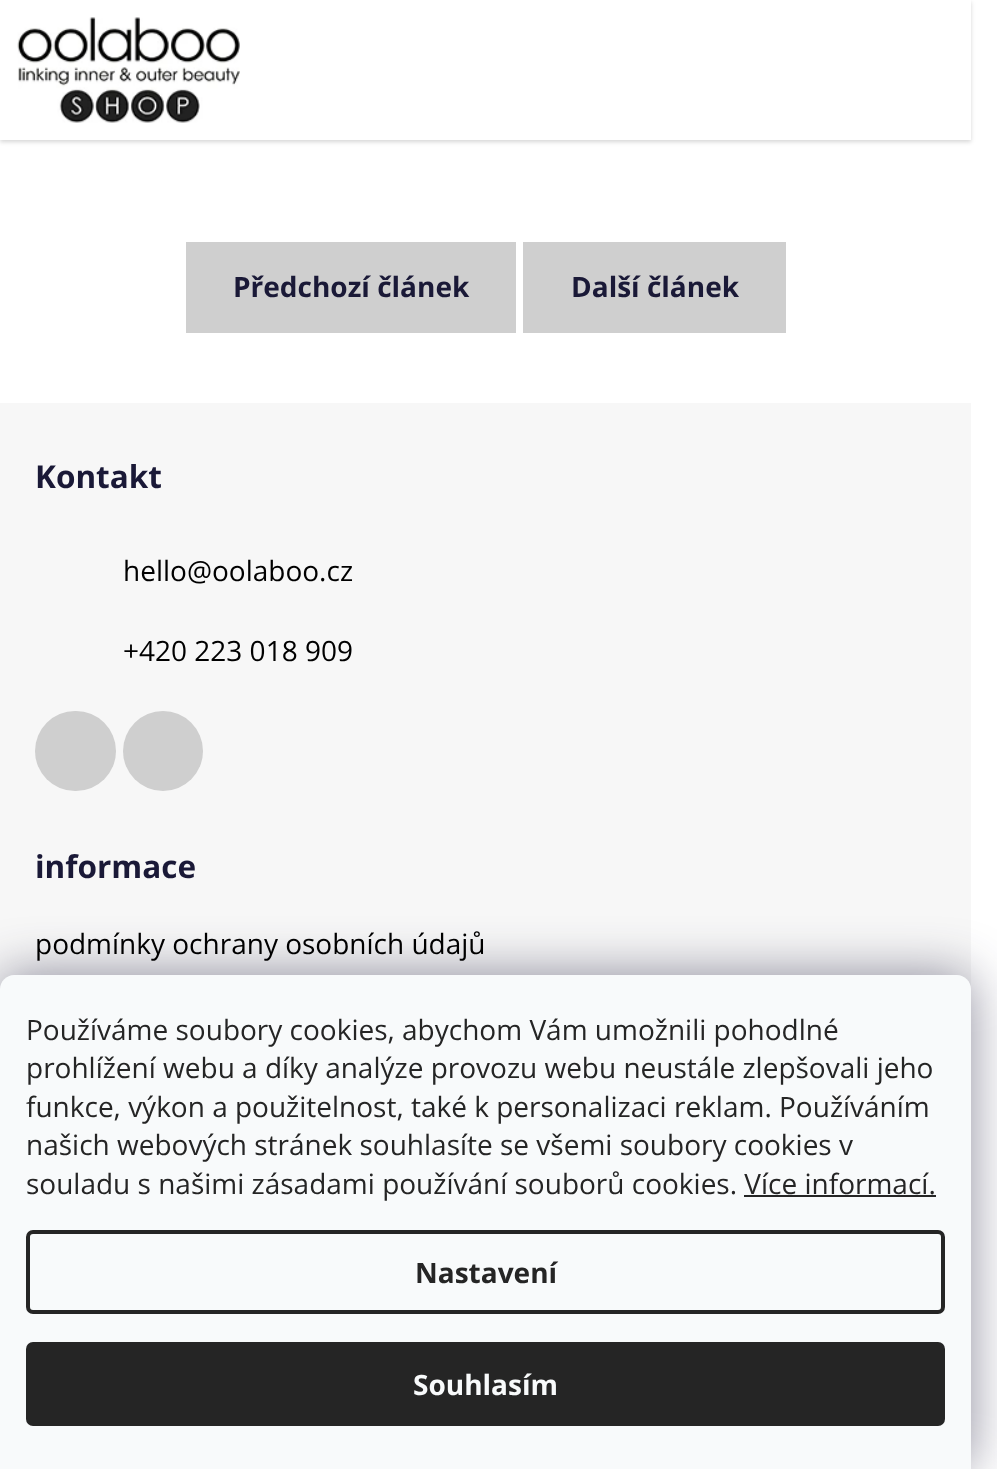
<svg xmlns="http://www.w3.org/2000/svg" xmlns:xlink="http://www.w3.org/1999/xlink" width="997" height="1469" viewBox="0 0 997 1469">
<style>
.cls-1{font:bold 28px Open Sans;fill:#1a1937}
.cls-2{font:bold 31.5px Open Sans;fill:#1a1937}
.cls-3{font:28px Open Sans;fill:#000000}
.cls-4{font:28px Open Sans;fill:#252525}
.cls-5{font:bold 28px Open Sans;fill:#252525}
.cls-6{font:bold 28px Open Sans;fill:#f8fafb}
</style>
<rect width="100%" height="100%" fill="#ffffff"/>
<rect fill="#000000" fill-opacity="0.16" filter="blur(2px)" x="0" y="2" width="971" height="140"/>
<rect fill="#ffffff" x="0" y="0" width="971" height="140"/>
<image xlink:href="image0.png" x="17" y="17" width="223" height="106"/>
<rect fill="#cfcfcf" x="186" y="242" width="330" height="91"/>
<rect fill="#cfcfcf" x="523" y="242" width="263" height="91"/>
<rect fill="#f7f7f7" x="0" y="403" width="971" height="586"/>
<rect fill="#cfcfcf" x="35" y="711" width="81" height="80" rx="40"/>
<circle fill="#cfcfcf" cx="163" cy="751" r="40"/>
<rect fill="#1b1939" fill-opacity="0.5" filter="blur(26px)" x="0" y="975" width="971" height="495" rx="14"/>
<path fill="#f8fafb" d="M14 975H957C964.5 975 971 981.5 971 989V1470H0V989C0 981.5 6.5 975 14 975Z"/>
<rect fill="#252525" x="744" y="1195" width="192" height="2"/>
<rect fill="none" stroke="#252525" stroke-width="4" x="28" y="1232" width="915" height="80" rx="5"/>
<rect fill="#252525" x="26" y="1342" width="919" height="84" rx="7"/>
<text class="cls-1" x="233" y="297">Předchozí článek</text>
<text class="cls-1" x="571" y="297">Další článek</text>
<text class="cls-2" x="35" y="488">Kontakt</text>
<text class="cls-3" x="123" y="581">hello@oolaboo.cz</text>
<text class="cls-3" x="123" y="661">+420 223 018 909</text>
<text class="cls-2" x="35" y="878">informace</text>
<text class="cls-3" x="35" y="954">podmínky ochrany osobních údajů</text>
<text class="cls-4"><tspan x="26" y="1040">Používáme soubory cookies, abychom Vám umožnili pohodlné</tspan><tspan x="26" y="1078">prohlížení webu a díky analýze provozu webu neustále zlepšovali jeho</tspan><tspan x="26" y="1117">funkce, výkon a použitelnost, také k personalizaci reklam. Používáním</tspan><tspan x="26" y="1155">našich webových stránek souhlasíte se všemi soubory cookies v</tspan><tspan x="26" y="1194">souladu s našimi zásadami používání souborů cookies. Více informací.</tspan></text>
<text class="cls-5" x="415" y="1283">Nastavení</text>
<text class="cls-6" x="413" y="1395">Souhlasím</text>
</svg>
